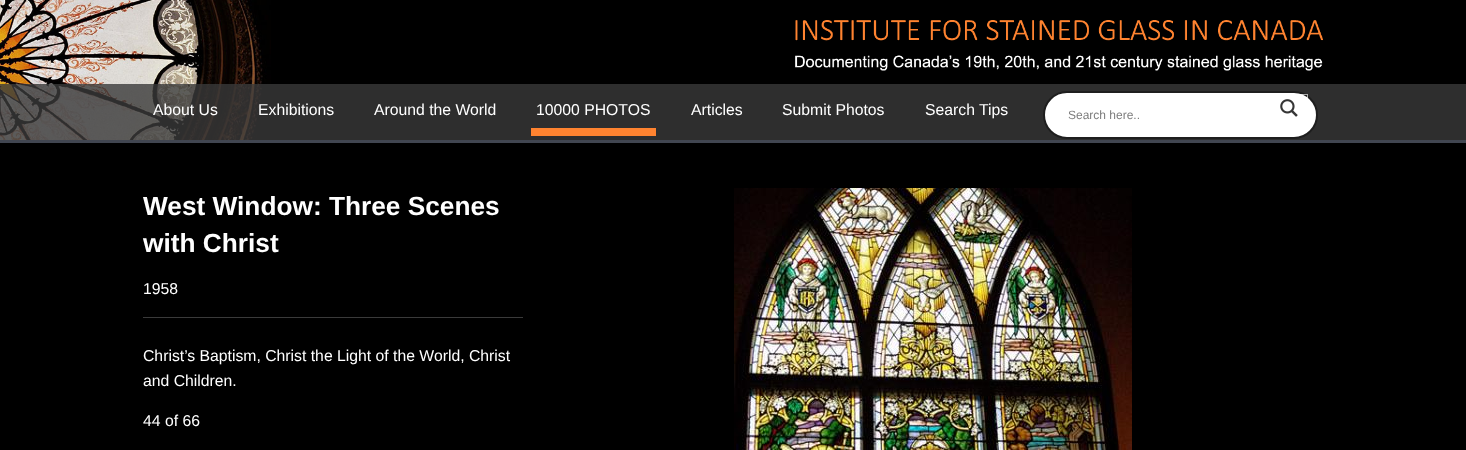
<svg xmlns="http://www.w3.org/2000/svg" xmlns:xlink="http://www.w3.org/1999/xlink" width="1466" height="450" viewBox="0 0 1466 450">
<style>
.cls-1{font:15.75px Liberation Sans;fill:#ffffff}
.cls-2{font:12px Liberation Sans;fill:#7d7d7d}
.cls-3{font:bold 26.25px Liberation Sans;fill:#ffffff}
</style>
<defs>
<clipPath id="clip1"><rect x="1270" y="94" width="38" height="28"/></clipPath>
</defs>
<rect width="100%" height="100%" fill="#000000"/>
<image xlink:href="image0.png" x="0" y="0" width="271" height="140"/>
<image xlink:href="image1.png" x="795" y="20" width="528" height="51"/>
<rect fill="#3a3a3a" fill-opacity="0.8" x="0" y="84" width="1466" height="56"/>
<rect fill="#414651" x="0" y="140" width="1466" height="3"/>
<rect fill="#ff8330" x="531" y="128" width="125" height="8"/>
<rect fill="#ffffff" stroke="#1e1e1e" stroke-width="2" x="1044" y="92" width="273" height="46" rx="23"/>
<g clip-path="url(#clip1)">
<path fill="#ffffff" fill-opacity="0.64" fill-rule="evenodd" d="M1171-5H1407V221H1171ZM1269 95H1307V123H1269Z"/>
</g>
<image xlink:href="image2.png" x="1280" y="99" width="18" height="18"/>
<rect fill="#3a3a3a" x="143" y="317" width="380" height="1"/>
<image xlink:href="image3.png" x="734" y="188" width="398" height="262"/>
<text class="cls-1" x="153" y="115">About Us</text>
<text class="cls-1" x="258" y="115">Exhibitions</text>
<text class="cls-1" x="374" y="115">Around the World</text>
<text class="cls-1" x="536" y="115">10000 PHOTOS</text>
<text class="cls-1" x="691" y="115">Articles</text>
<text class="cls-1" x="782" y="115">Submit Photos</text>
<text class="cls-1" x="925" y="115">Search Tips</text>
<text class="cls-2" x="1068" y="119">Search here..</text>
<text class="cls-3"><tspan x="143" y="215">West Window: Three Scenes</tspan><tspan x="143" y="252">with Christ</tspan></text>
<text class="cls-1" x="143" y="294">1958</text>
<text class="cls-1"><tspan x="143" y="361">Christ’s Baptism, Christ the Light of the World, Christ</tspan><tspan x="143" y="386">and Children.</tspan></text>
<text class="cls-1" x="143" y="426">44 of 66</text>
</svg>
